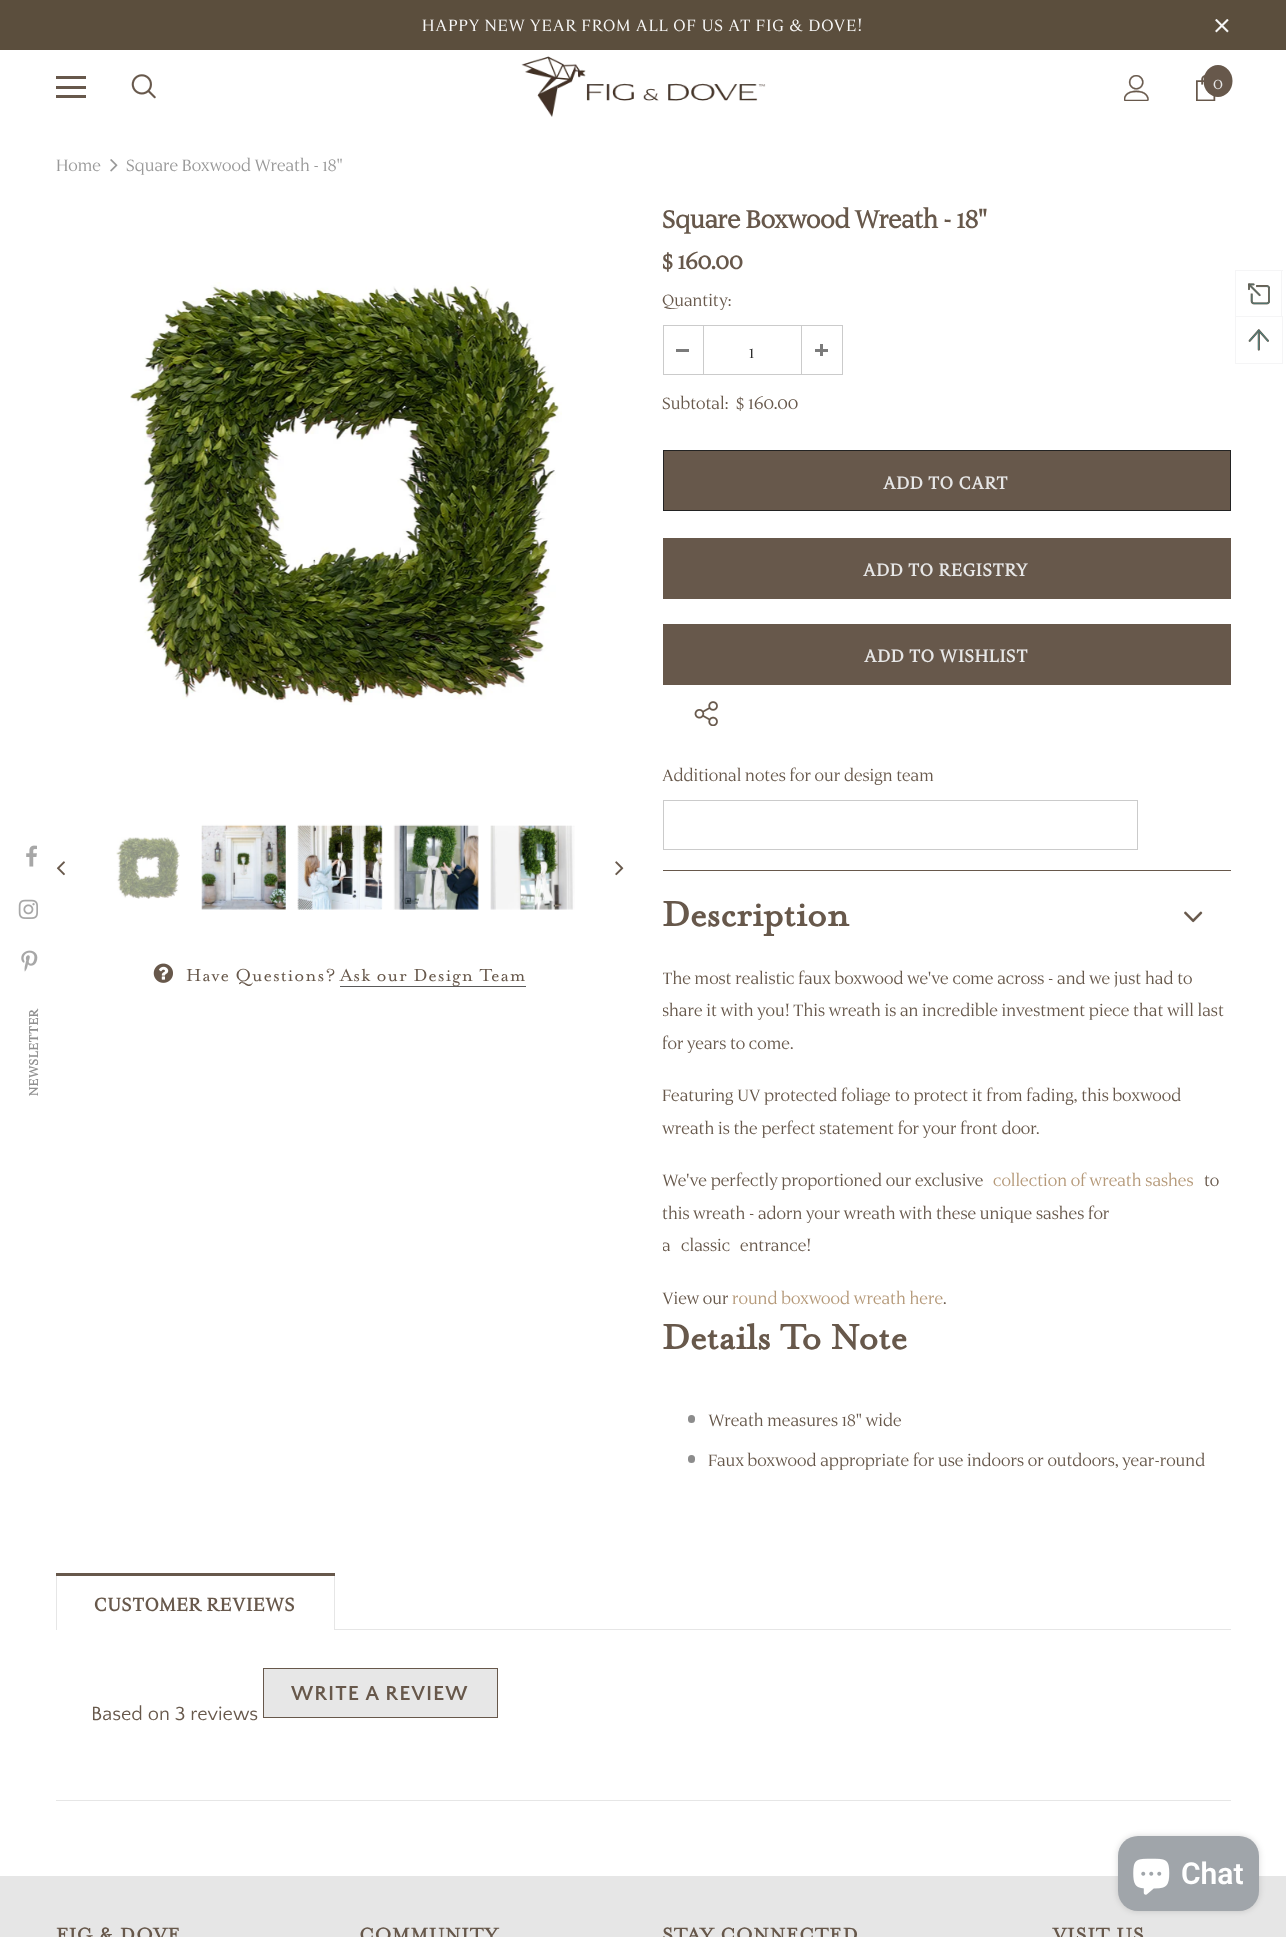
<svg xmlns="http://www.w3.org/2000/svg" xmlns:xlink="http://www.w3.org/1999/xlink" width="1286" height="1937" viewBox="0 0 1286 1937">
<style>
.cls-1{font:20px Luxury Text;letter-spacing:1px;fill:#f8f8f8}
.cls-2{font:20px Luxury Text;fill:#e7e7e7}
.cls-3{font:20px Luxury Text;fill:#999999}
.cls-4{font:20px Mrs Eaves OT;letter-spacing:1px;fill:#67584b}
.cls-5{font:bold 30px Luxury Text;fill:#67584b}
.cls-6{font:bold 27.5px Luxury Text;fill:#67584b}
.cls-7{font:20px Luxury Text;fill:#67584b}
.cls-8{font:20px Luxury Text;fill:#2d2d2d}
.cls-9{font:21.25px Luxury Text;fill:#67584b}
.cls-10{font:bold 21.25px Luxury Text;letter-spacing:1px;fill:#e7e7e7}
.cls-11{font:bold 40px Mrs Eaves OT;fill:#67584b}
.cls-12{font:20px Luxury Text;fill:#b59979}
.cls-13{font:bold 22.5px Luxury Text;letter-spacing:1.1px;fill:#67584b}
.cls-14{font:bold 21.25px Quattrocento Sans;letter-spacing:1px;fill:#67584b}
.cls-15{font:20px Quattrocento Sans;fill:#67584b}
.cls-16{font:bold 21.25px Mrs Eaves OT;letter-spacing:1px;fill:#67584b}
.cls-17{font:bold 15px Luxury Text;letter-spacing:0.75px;fill:#909090}
.cls-18{font:600 30px Roboto;fill:#ffffff}
</style>
<defs>
<clipPath id="clip1"><rect x="663" y="961" width="568" height="547"/></clipPath>
</defs>
<rect width="100%" height="100%" fill="#ffffff"/>
<rect fill="#5b4e3d" x="0" y="0" width="1286" height="50"/>
<image xlink:href="image0.png" x="1215" y="19" width="14" height="14"/>
<rect fill="#67584b" x="56" y="76" width="30" height="3"/>
<rect fill="#67584b" x="56" y="86" width="30" height="3"/>
<rect fill="#67584b" x="56" y="95" width="30" height="3"/>
<image xlink:href="image1.png" x="131" y="74" width="25" height="25"/>
<image xlink:href="image2.png" x="521" y="56" width="245" height="61"/>
<image xlink:href="image3.png" x="1124" y="75" width="25" height="26"/>
<image xlink:href="image4.png" x="1196" y="75" width="20" height="26"/>
<ellipse fill="#67584b" cx="1218" cy="81" rx="14.5" ry="16"/>
<image xlink:href="image5.png" x="110" y="159" width="8" height="13"/>
<image xlink:href="image6.png" x="130" y="282" width="432" height="423"/>
<image xlink:href="image7.png" x="56" y="861" width="9" height="15"/>
<image xlink:href="image8.png" x="116" y="837" width="64" height="62"/>
<image xlink:href="image9.png" x="201" y="824" width="85" height="86"/>
<image xlink:href="image10.png" x="297" y="824" width="86" height="86"/>
<image xlink:href="image11.png" x="393" y="824" width="86" height="86"/>
<image xlink:href="image12.png" x="490" y="825" width="85" height="85"/>
<image xlink:href="image13.png" x="615" y="861" width="9" height="15"/>
<image xlink:href="image14.png" x="153" y="963" width="20" height="20"/>
<rect fill="#5a5a5a" x="340" y="986" width="186" height="1"/>
<rect fill="none" stroke="#cbcbcb" x="663.5" y="325.5" width="179" height="49"/>
<rect fill="#cbcbcb" x="703" y="326" width="1" height="48"/>
<rect fill="#7b7b7b" x="676" y="349" width="13" height="3"/>
<rect fill="#cbcbcb" x="801" y="326" width="1" height="48"/>
<rect fill="#7b7b7b" x="815" y="349" width="13" height="3"/>
<rect fill="#7b7b7b" x="820" y="344" width="3" height="12"/>
<rect fill="#67584b" stroke="#232323" x="663.5" y="450.5" width="567" height="60"/>
<rect fill="#67584b" x="663" y="538" width="568" height="61"/>
<rect fill="#67584b" x="663" y="624" width="568" height="61"/>
<image xlink:href="image15.png" x="694" y="701" width="24" height="25"/>
<rect fill="none" stroke="#cbcbcb" x="663.5" y="800.5" width="474" height="49"/>
<rect fill="#67584b" x="663" y="870" width="568" height="1"/>
<image xlink:href="image16.png" x="1184" y="911" width="19" height="12"/>
<rect fill="#8c8c8c" x="688" y="1415" width="7" height="8" rx="3.5"/>
<rect fill="#8c8c8c" x="688" y="1455" width="7" height="8" rx="3.5"/>
<rect fill="#e6e6e6" x="335" y="1629" width="896" height="1"/>
<rect fill="#e6e6e6" x="334" y="1573" width="1" height="57"/>
<rect fill="#e6e6e6" x="56" y="1573" width="1" height="57"/>
<rect fill="#67584b" x="56" y="1573" width="279" height="3"/>
<rect fill="#e7e7e7" stroke="#67584b" x="263.5" y="1668.5" width="234" height="49"/>
<rect fill="#e6e6e6" x="56" y="1800" width="1175" height="1"/>
<rect fill="#e6e6e6" x="0" y="1876" width="1286" height="61"/>
<rect fill="#f5f5f6" x="1235" y="270" width="48" height="1"/>
<rect fill="#f5f5f6" x="1281" y="270" width="1" height="46"/>
<rect fill="#f5f5f6" x="1235" y="270" width="1" height="46"/>
<image xlink:href="image17.png" x="1248" y="283" width="22" height="22"/>
<rect fill="none" stroke="#f5f5f6" x="1235.5" y="316.5" width="47" height="47"/>
<image xlink:href="image18.png" x="1248" y="329" width="21" height="22"/>
<image xlink:href="image19.png" x="26" y="845" width="11" height="22"/>
<image xlink:href="image20.png" x="18" y="899" width="20" height="20"/>
<image xlink:href="image21.png" x="21" y="950" width="17" height="22"/>
<rect fill="#000000" fill-opacity="0.15" filter="blur(3px)" x="1118" y="1836" width="141" height="75" rx="20"/>
<rect fill="#a0a5aa" x="1118" y="1836" width="141" height="75" rx="20"/>
<image xlink:href="image22.png" x="1133" y="1858" width="37" height="37"/>
<text class="cls-1" x="422" y="31">HAPPY NEW YEAR FROM ALL OF US AT FIG &amp; DOVE!</text>
<text class="cls-2" x="1213" y="89">0</text>
<text class="cls-3" x="56" y="171">Home</text>
<text class="cls-3" x="126" y="171">Square Boxwood Wreath - 18"</text>
<text class="cls-4" x="186" y="981">Have Questions?</text>
<text class="cls-4" x="340" y="981">Ask our Design Team</text>
<text class="cls-5" x="662" y="228">Square Boxwood Wreath - 18"</text>
<text class="cls-6" x="662" y="269">$ 160.00</text>
<text class="cls-7" x="662" y="306">Quantity:</text>
<text class="cls-8" x="749" y="358">1</text>
<text class="cls-7" x="662" y="409">Subtotal:</text>
<text class="cls-9" x="736" y="409">$ 160.00</text>
<text class="cls-10" x="883" y="489">ADD TO CART</text>
<text class="cls-10" x="863" y="576">ADD TO REGISTRY</text>
<text class="cls-10" x="864" y="662">ADD TO WISHLIST</text>
<text class="cls-7" x="662" y="781">Additional notes for our design team</text>
<text class="cls-11" x="662" y="926">Description</text>
<g clip-path="url(#clip1)">
<text class="cls-7"><tspan x="662" y="984">The most realistic faux boxwood we've come across - and we just had to</tspan><tspan x="662" y="1016">share it with you! This wreath is an incredible investment piece that will last</tspan><tspan x="662" y="1049">for years to come.</tspan></text>
</g>
<text class="cls-7"><tspan x="662" y="1101">Featuring UV protected foliage to protect it from fading, this boxwood</tspan><tspan x="662" y="1134">wreath is the perfect statement for your front door.</tspan></text>
<text class="cls-7" x="662" y="1186">We've perfectly proportioned our exclusive</text>
<text class="cls-12" x="993" y="1186">collection of wreath sashes</text>
<text class="cls-7" x="1204" y="1186">to</text>
<text class="cls-7" x="662" y="1219">this wreath - adorn your wreath with these unique sashes for</text>
<g clip-path="url(#clip1)">
<text class="cls-7" x="662" y="1251">a</text>
<text class="cls-7" x="681" y="1251">classic</text>
<text class="cls-7" x="740" y="1251">entrance!</text>
</g>
<text class="cls-7" x="662" y="1304">View our</text>
<text class="cls-12" x="732" y="1304">round boxwood wreath here</text>
<text class="cls-7" x="943" y="1304">.</text>
<text class="cls-11" x="662" y="1349">Details To Note</text>
<text class="cls-7" x="708" y="1426">Wreath measures 18" wide</text>
<text class="cls-7" x="708" y="1466">Faux boxwood appropriate for use indoors or outdoors, year-round</text>
<text class="cls-13" x="94" y="1611">CUSTOMER REVIEWS</text>
<text class="cls-14" x="291" y="1700">WRITE A REVIEW</text>
<text class="cls-15" x="91" y="1720">Based on 3 reviews</text>
<text class="cls-16" x="56" y="1941">FIG &amp; DOVE</text>
<text class="cls-16" x="359" y="1941">COMMUNITY</text>
<text class="cls-16" x="662" y="1941">STAY CONNECTED</text>
<text class="cls-16" x="1053" y="1941">VISIT US</text>
<text class="cls-17" x="38" y="1096" transform="rotate(-90 38 1096)">NEWSLETTER</text>
<text class="cls-18" x="1181" y="1884">Chat</text>
</svg>
